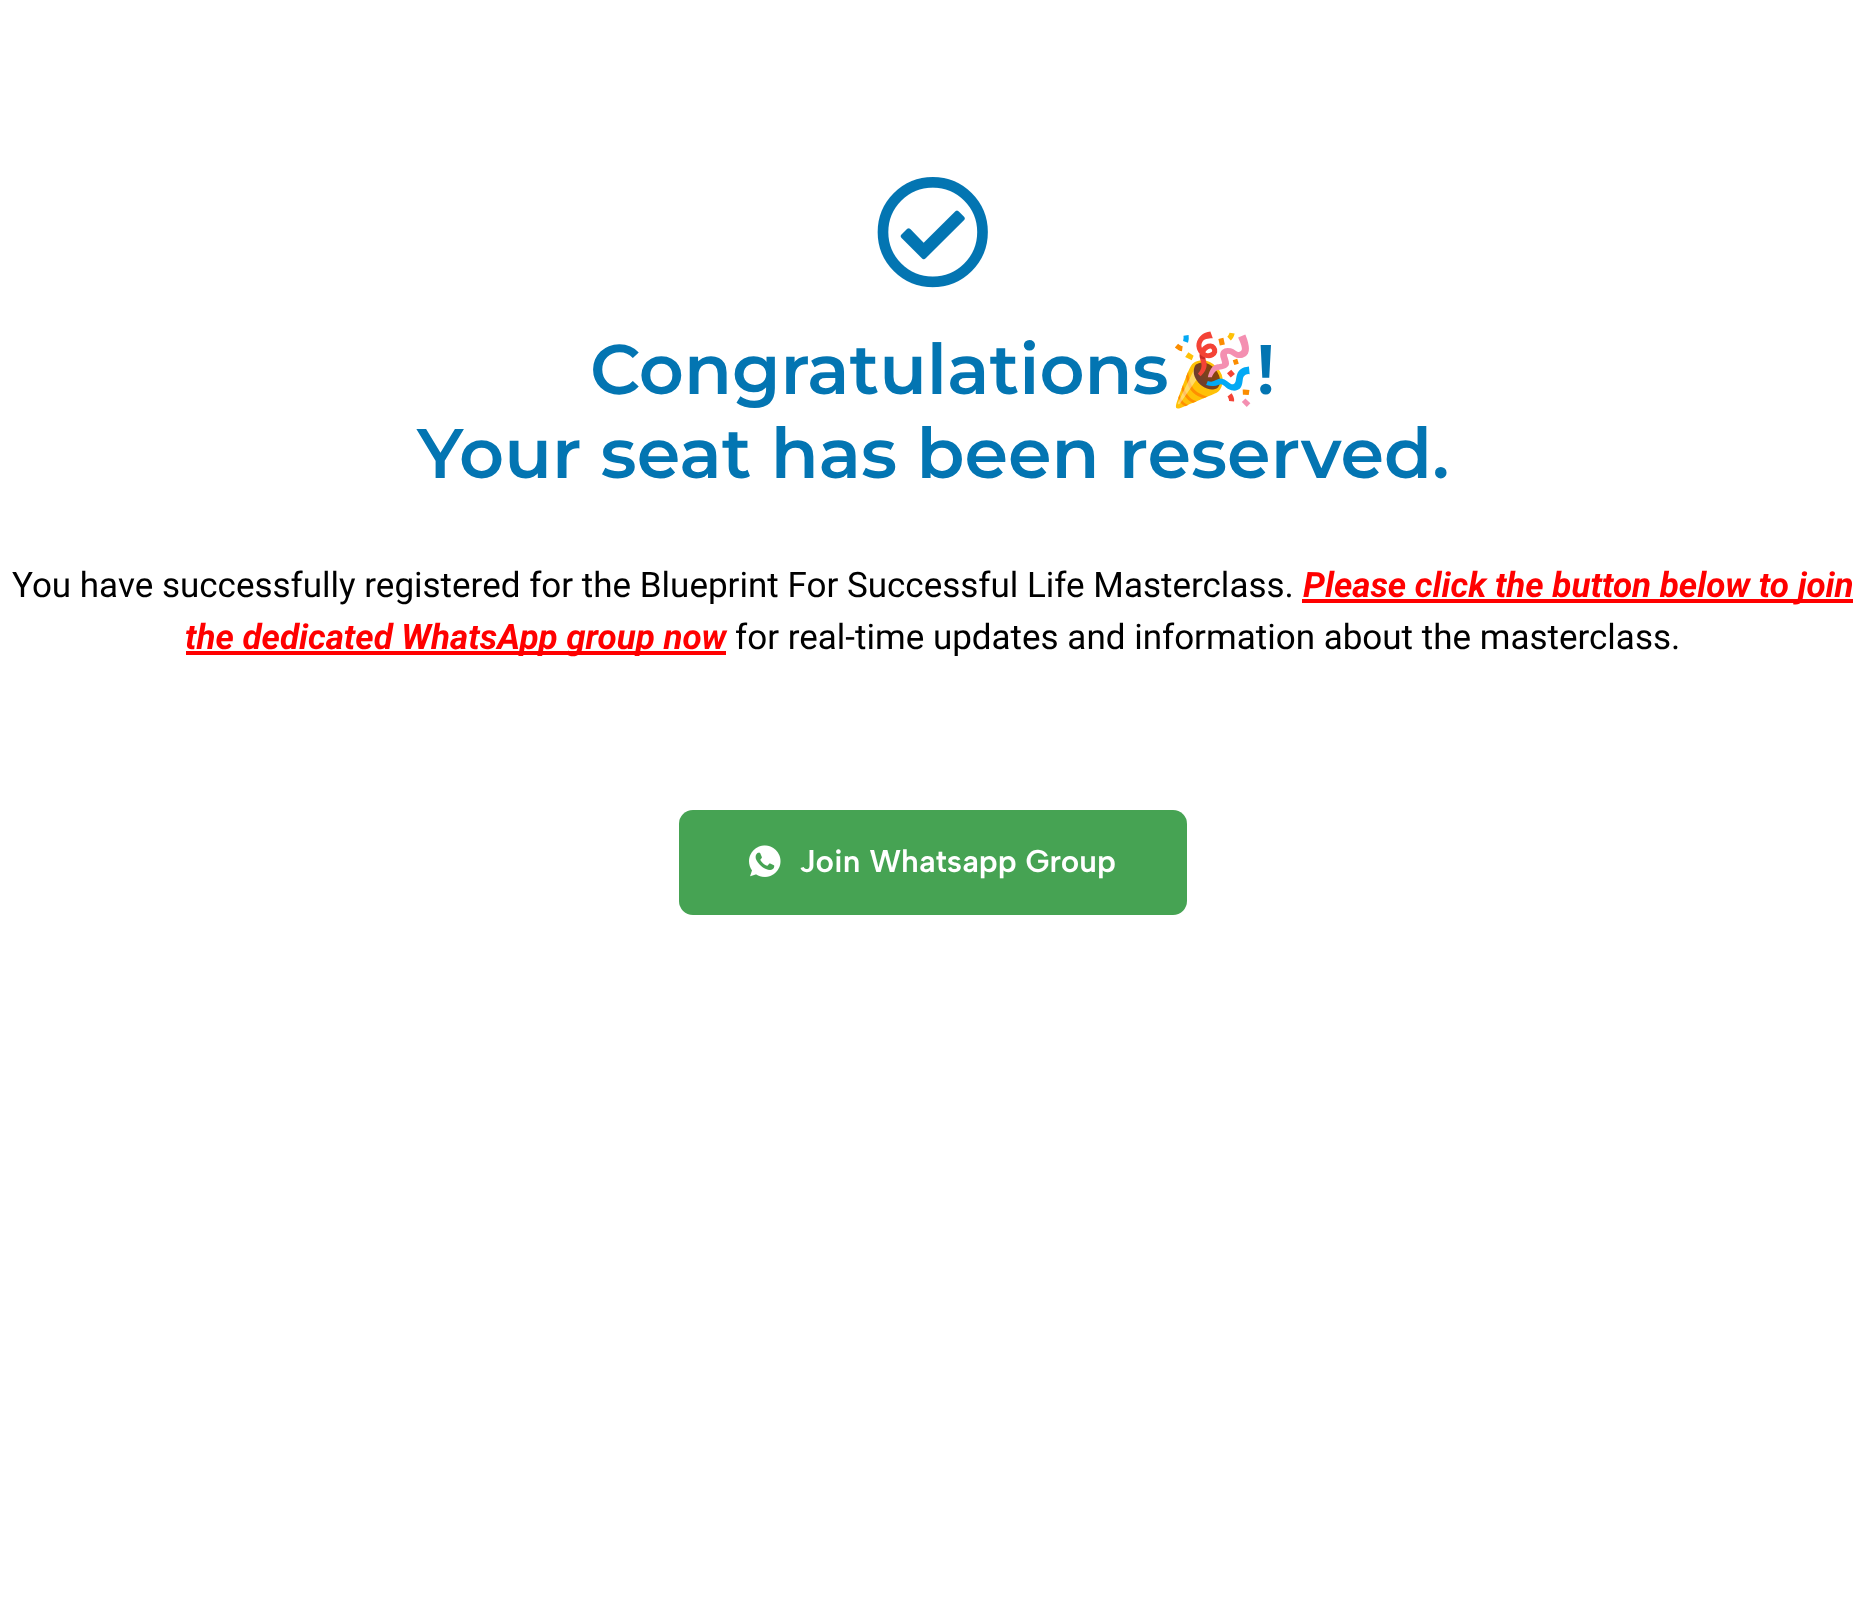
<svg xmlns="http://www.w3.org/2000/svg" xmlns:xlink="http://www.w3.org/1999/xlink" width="1865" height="1605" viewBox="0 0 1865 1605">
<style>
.cls-1{font:600 70px Montserrat;fill:#0375b2}
.cls-2{font:bold 70px Noto Color Emoji;fill:#0375b2}
.cls-3{font:35px Roboto;fill:#000000}
.cls-4{font:italic bold 35px Roboto;fill:#ff0000}
.cls-5{font:600 31.5px Albert Sans;fill:#ffffff}
</style>
<rect width="100%" height="100%" fill="#ffffff"/>
<image xlink:href="image0.png" x="877" y="177" width="111" height="111"/>
<rect fill="#ff0000" x="1302" y="599" width="551" height="4"/>
<rect fill="#ff0000" x="186" y="651" width="540" height="4"/>
<rect fill="#46a353" x="679" y="810" width="508" height="105" rx="14"/>
<image xlink:href="image1.png" x="749" y="845" width="32" height="32"/>
<text class="cls-1" x="590" y="394">Congratulations</text>
<text class="cls-2" x="1169" y="394">🎉</text>
<text class="cls-1" x="1256" y="394">!</text>
<text class="cls-1" x="417" y="478">Your seat has been reserved.</text>
<text class="cls-3" x="12" y="597">You have successfully registered for the Blueprint For Successful Life Masterclass.</text>
<text class="cls-4" x="1303" y="597">Please click the button below to join</text>
<text class="cls-4" x="185" y="649">the dedicated WhatsApp group now</text>
<text class="cls-3" x="735" y="649">for real-time updates and information about the masterclass.</text>
<text class="cls-5" x="799" y="872">Join Whatsapp Group</text>
</svg>
